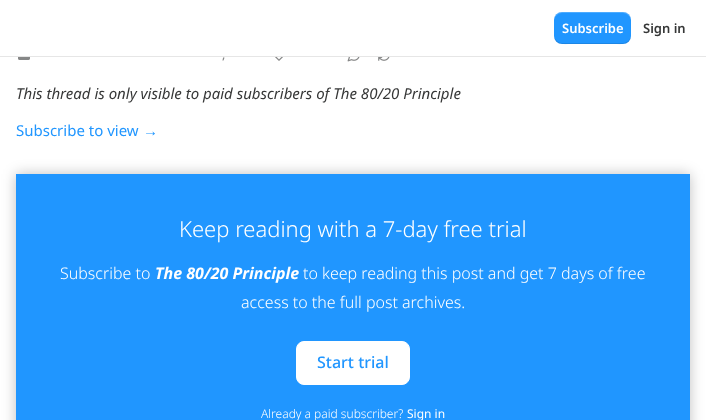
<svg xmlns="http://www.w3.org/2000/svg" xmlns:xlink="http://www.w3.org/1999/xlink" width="706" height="420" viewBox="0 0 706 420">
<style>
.cls-1{font:600 13px Noto Sans;fill:#ffffff}
.cls-2{font:600 13px Noto Sans;fill:#363737}
.cls-3{font:500 12px Noto Sans;fill:#868787}
.cls-4{font:italic 15px Noto Sans;fill:#363737}
.cls-5{font:15px Noto Sans;fill:#2096ff}
.cls-6{font:15px Liberation Sans;fill:#2096ff}
.cls-7{font:300 22px Noto Sans;fill:#ffffff}
.cls-8{font:300 16px Noto Sans;fill:#ffffff}
.cls-9{font:italic bold 16px Noto Sans;fill:#ffffff}
.cls-10{font:500 16px Noto Sans;fill:#2096ff}
.cls-11{font:300 12px Noto Sans;fill:#ffffff}
.cls-12{font:12px Noto Sans;fill:#ffffff}
</style>
<defs>
<clipPath id="clip1"><path d="M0 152H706V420H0ZM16 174H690V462H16Z" clip-rule="evenodd"/></clipPath>
</defs>
<rect width="100%" height="100%" fill="#ffffff"/>
<rect fill="#e6e6e6" x="0" y="56" width="706" height="1"/>
<rect fill="#2096ff" x="554" y="12" width="77" height="32" rx="8"/>
<path fill="#000000" fill-opacity="0.1" d="M554 35C554 46 564 44 572 44H613C621 44 631 46 631 35C631 39 627 43 623 43H562C558 43 554 39 554 35Z"/>
<path fill="#ffffff" fill-opacity="0.2" d="M562 13H623C627 13 631 17 631 21C631 10 621 12 613 12H572C564 12 554 10 554 21C554 17 558 13 562 13Z"/>
<image xlink:href="image0.png" x="18" y="57" width="12" height="3"/>
<image xlink:href="image1.png" x="275" y="57" width="8" height="4"/>
<image xlink:href="image2.png" x="347" y="57" width="13" height="5"/>
<image xlink:href="image3.png" x="378" y="57" width="12" height="4"/>
<rect fill="#2096ff" x="16" y="174" width="674" height="246"/>
<rect fill="#ffffff" stroke="#ffffff" x="296.5" y="341.5" width="113" height="43" rx="7.5"/>
<g clip-path="url(#clip1)">
<rect fill="#000000" fill-opacity="0.25" filter="blur(7px)" x="16" y="174" width="674" height="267"/>
</g>
<text class="cls-1" x="562" y="33">Subscribe</text>
<text class="cls-2" x="643" y="33">Sign in</text>
<text class="cls-3" x="222" y="59">,</text>
<text class="cls-4" x="16" y="99">This thread is only visible to paid subscribers of The 80/20 Principle</text>
<text class="cls-5" x="16" y="136">Subscribe to view</text>
<text class="cls-6" x="143" y="136">→</text>
<text class="cls-7" x="179" y="237">Keep reading with a 7-day free trial</text>
<text class="cls-8" x="60" y="279">Subscribe to</text>
<text class="cls-9" x="155" y="279">The 80/20 Principle</text>
<text class="cls-8" x="303" y="279">to keep reading this post and get 7 days of free</text>
<text class="cls-8" x="241" y="308">access to the full post archives.</text>
<text class="cls-10" x="317" y="368">Start trial</text>
<text class="cls-11" x="261" y="418">Already a paid subscriber?</text>
<text class="cls-12" x="407" y="418">Sign in</text>
</svg>
